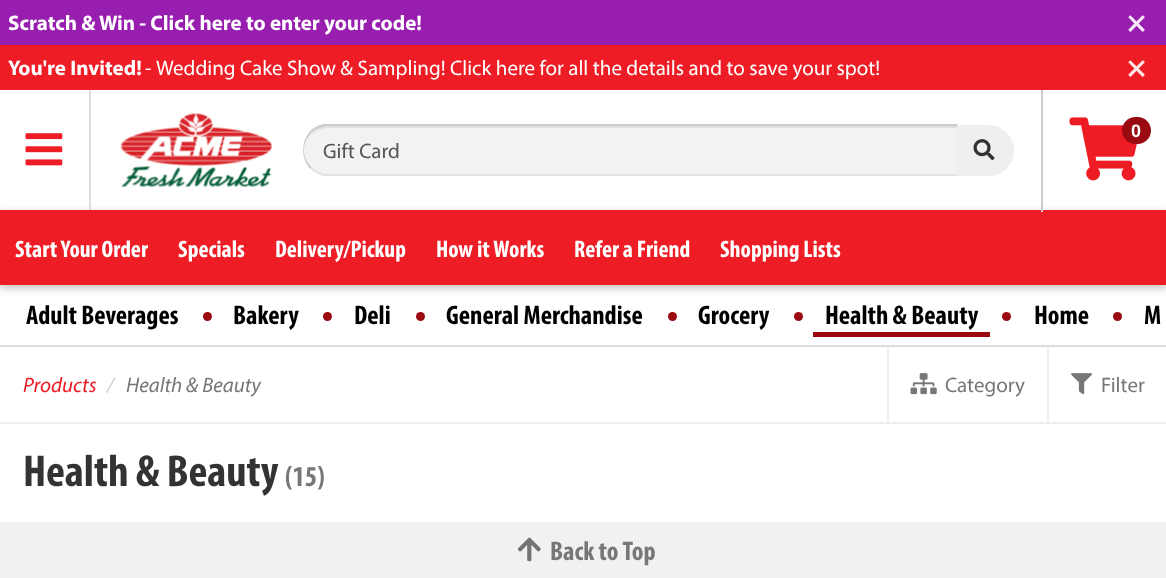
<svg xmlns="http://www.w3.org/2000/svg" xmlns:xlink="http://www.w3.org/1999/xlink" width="1166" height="578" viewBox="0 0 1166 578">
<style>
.cls-1{font:bold 21px Myriad;fill:#ffffff}
.cls-2{font:bold 32px Myriad;fill:#f5e9f7}
.cls-3{font:21px Myriad;fill:#ffffff}
.cls-4{font:bold 32px Myriad;fill:#fde8e9}
.cls-5{font:bold 18px Liberation Sans;fill:#ffffff}
.cls-6{font:21px Myriad;fill:#555555}
.cls-7{font:bold 24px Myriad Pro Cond;fill:#ffffff}
.cls-8{font:bold 27px Myriad Pro Cond;fill:#000000}
.cls-9{font:italic 21px Myriad;fill:#ee1c24}
.cls-10{font:italic 21px Myriad;fill:#cccccc}
.cls-11{font:italic 21px Myriad;fill:#777777}
.cls-12{font:21px Myriad;fill:#777777}
.cls-13{font:bold 45px Myriad Pro Cond;fill:#333333}
.cls-14{font:bold 29px Myriad Pro Cond;fill:#777777}
.cls-15{font:bold 27px Myriad Pro Cond;fill:#777777}
</style>
<rect width="100%" height="100%" fill="#ffffff"/>
<rect fill="#981eb0" x="0" y="0" width="1166" height="45"/>
<rect fill="#ee1c24" x="0" y="45" width="1166" height="45"/>
<rect fill="#000000" fill-opacity="0.25" filter="blur(4px)" x="0" y="213" width="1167" height="75"/>
<rect fill="#dddddd" x="89" y="90" width="2" height="120"/>
<image xlink:href="image0.png" x="25" y="133" width="38" height="33"/>
<image xlink:href="image1.png" x="120" y="112" width="153" height="76"/>
<rect fill="#ee1c24" x="0" y="210" width="1166" height="75"/>
<rect fill="#cccccc" x="1041" y="90" width="2" height="122"/>
<image xlink:href="image2.png" x="1069" y="117" width="68" height="64"/>
<rect fill="#990b11" x="1122" y="117" width="29" height="27" rx="13.5"/>
<path fill="#f2f2f2" d="M328.5 125H959V176H328.5C314.5 176 303 164.5 303 150.5C303 136.5 314.5 125 328.5 125Z"/>
<path fill="#e0e0e0" d="M328 128H957V126H329C320 126 312 131 308 139C312 132 320 128 328 128Z"/>
<path fill="#cccccc" d="M328 126C322 126 316 129 311 133L310 131C313 128 317 126 323 124H958L957 126Z"/>
<path fill="#e2e2e2" d="M323 176C318 174 313 172 310 168L311 167C316 171 322 174 328 174H957L958 176Z"/>
<path fill="#cccccc" d="M310 168.5C301 158.5 301 141 310 131.5L311.5 133C301.5 142.5 301.5 157.5 311.5 167Z"/>
<path fill="#efefef" d="M957 125H988.5C1002.5 125 1014 136.5 1014 150.5C1014 164.5 1002.5 176 988.5 176H957Z"/>
<image xlink:href="image3.png" x="973" y="139" width="22" height="22"/>
<circle fill="#990b11" cx="207.5" cy="316.5" r="4.5"/>
<circle fill="#990b11" cx="327.5" cy="316.5" r="4.5"/>
<circle fill="#990b11" cx="420.5" cy="316.5" r="4.5"/>
<circle fill="#990b11" cx="672.5" cy="316.5" r="4.5"/>
<circle fill="#990b11" cx="798.5" cy="316.5" r="4.5"/>
<rect fill="#990b11" x="813" y="332" width="177" height="5"/>
<circle fill="#990b11" cx="1006.5" cy="316.5" r="4.5"/>
<circle fill="#990b11" cx="1117.5" cy="316.5" r="4.5"/>
<rect fill="#dddddd" x="0" y="345" width="1166" height="2"/>
<rect fill="#eeeeee" x="0" y="422" width="1166" height="2"/>
<rect fill="#eeeeee" x="887" y="347" width="2" height="75"/>
<image xlink:href="image4.png" x="910" y="373" width="27" height="22"/>
<rect fill="#eeeeee" x="1047" y="347" width="2" height="75"/>
<image xlink:href="image5.png" x="1071" y="373" width="21" height="22"/>
<rect fill="#f1f1f1" x="0" y="522" width="1166" height="56"/>
<image xlink:href="image6.png" x="517" y="537" width="24" height="25"/>
<text class="cls-1" x="8" y="30">Scratch &amp; Win - Click here to enter your code!</text>
<text class="cls-2" x="1127" y="32">×</text>
<text class="cls-1" x="8" y="75">You're Invited!</text>
<text class="cls-3" x="145" y="75">-</text>
<text class="cls-3" x="156" y="75">Wedding Cake Show &amp; Sampling! Click here for all the details and to save your spot!</text>
<text class="cls-4" x="1127" y="77">×</text>
<text class="cls-5" x="1131" y="137">0</text>
<text class="cls-6" x="323" y="158">Gift Card</text>
<text class="cls-7" x="15" y="257">Start Your Order</text>
<text class="cls-7" x="178" y="257">Specials</text>
<text class="cls-7" x="275" y="257">Delivery/Pickup</text>
<text class="cls-7" x="436" y="257">How it Works</text>
<text class="cls-7" x="574" y="257">Refer a Friend</text>
<text class="cls-7" x="720" y="257">Shopping Lists</text>
<text class="cls-8" x="26" y="324">Adult Beverages</text>
<text class="cls-8" x="233" y="324">Bakery</text>
<text class="cls-8" x="354" y="324">Deli</text>
<text class="cls-8" x="446" y="324">General Merchandise</text>
<text class="cls-8" x="698" y="324">Grocery</text>
<text class="cls-8" x="825" y="324">Health &amp; Beauty</text>
<text class="cls-8" x="1034" y="324">Home</text>
<text class="cls-8" x="1144" y="324">M</text>
<text class="cls-9" x="23" y="392">Products</text>
<text class="cls-10" x="107" y="392">/</text>
<text class="cls-11" x="126" y="392">Health &amp; Beauty</text>
<text class="cls-12" x="945" y="392">Category</text>
<text class="cls-12" x="1101" y="392">Filter</text>
<text class="cls-13" x="23" y="486">Health &amp; Beauty</text>
<text class="cls-14" x="285" y="486">(15)</text>
<text class="cls-15" x="550" y="560">Back to Top</text>
</svg>
